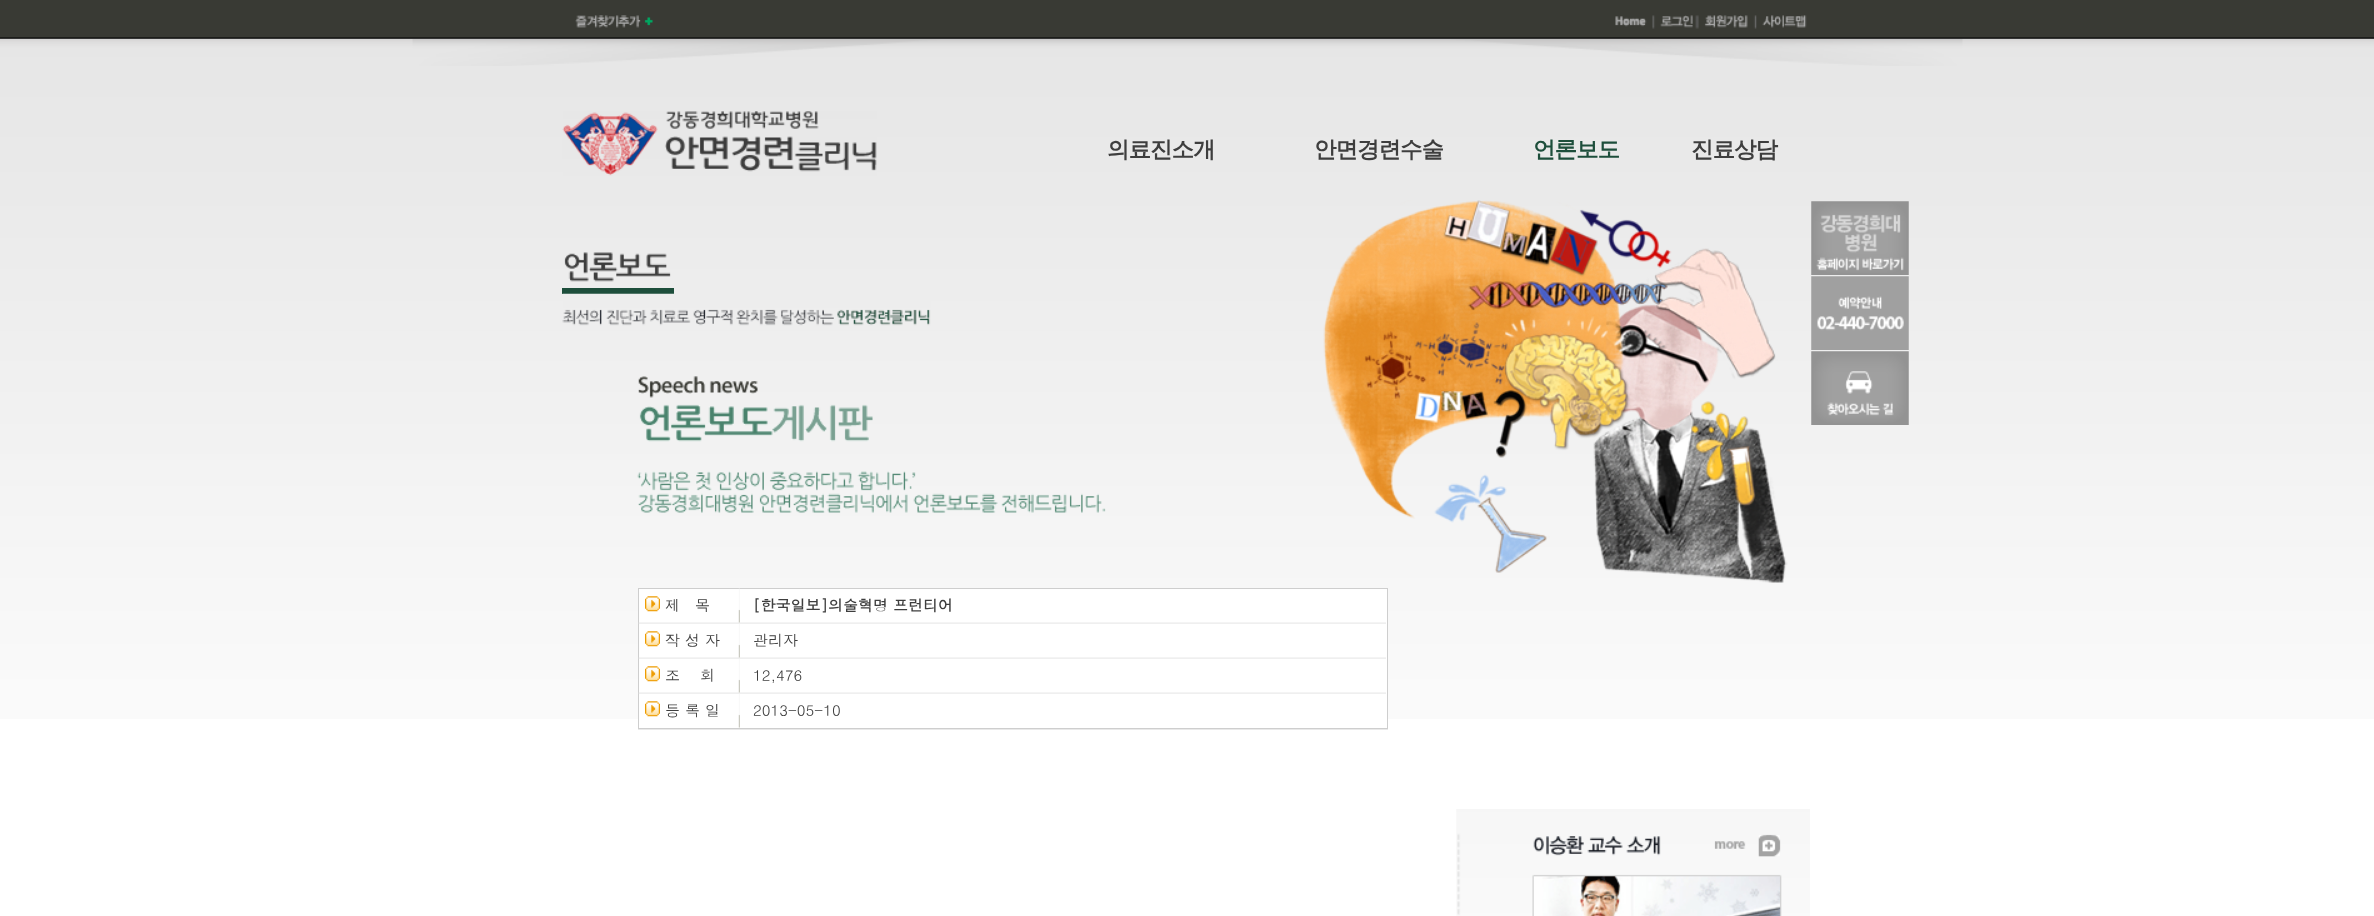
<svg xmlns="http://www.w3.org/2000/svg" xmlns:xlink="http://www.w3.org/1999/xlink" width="2374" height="916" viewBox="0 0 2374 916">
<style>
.cls-1{font:bold 22.5px WenQuanYi Zen Hei;letter-spacing:-1px;fill:#3e3e3e}
.cls-2{font:bold 22.5px WenQuanYi Zen Hei;letter-spacing:-1px;fill:#1d4e3b}
.cls-3{font:15px Dotum;fill:#3e3e3e}
.cls-4{font:bold 15px Dotum;fill:#3e3e3e}
</style>
<rect width="100%" height="100%" fill="#ffffff"/>
<image xlink:href="image0.png" x="0" y="0" width="2374" height="719"/>
<image xlink:href="image1.png" x="412" y="39" width="1551" height="27"/>
<image xlink:href="image2.png" x="575" y="15" width="78" height="13"/>
<image xlink:href="image3.png" x="1615" y="16" width="32" height="11"/>
<image xlink:href="image4.png" x="1652" y="15" width="44" height="14"/>
<image xlink:href="image5.png" x="1696" y="15" width="59" height="14"/>
<image xlink:href="image6.png" x="1755" y="15" width="52" height="14"/>
<image xlink:href="image7.png" x="562" y="111" width="315" height="65"/>
<image xlink:href="image8.png" x="1811" y="201" width="98" height="74"/>
<image xlink:href="image9.png" x="1811" y="276" width="98" height="74"/>
<image xlink:href="image10.png" x="1811" y="351" width="98" height="74"/>
<rect fill="#1d4e3b" x="562" y="288" width="112" height="6"/>
<image xlink:href="image11.png" x="564" y="252" width="107" height="30"/>
<image xlink:href="image12.png" x="562" y="293" width="369" height="33"/>
<image xlink:href="image13.png" x="637" y="376" width="469" height="137"/>
<image xlink:href="image14.png" x="1323" y="200" width="465" height="383"/>
<rect fill="#ffffff" x="639" y="589" width="748" height="130"/>
<rect fill="none" stroke="#cecece" x="638.5" y="588.5" width="749" height="140"/>
<image xlink:href="image15.png" x="645" y="596" width="15" height="16"/>
<image xlink:href="image17.png" x="638" y="622" width="748" height="2"/>
<image xlink:href="image16.png" x="738" y="588" width="2" height="35"/>
<image xlink:href="image15.png" x="645" y="631" width="15" height="16"/>
<image xlink:href="image17.png" x="638" y="657" width="748" height="2"/>
<image xlink:href="image18.png" x="738" y="624" width="2" height="34"/>
<image xlink:href="image15.png" x="645" y="666" width="15" height="16"/>
<image xlink:href="image17.png" x="638" y="692" width="748" height="2"/>
<image xlink:href="image18.png" x="738" y="659" width="2" height="34"/>
<image xlink:href="image15.png" x="645" y="701" width="15" height="16"/>
<image xlink:href="image19.png" x="738" y="694" width="2" height="34"/>
<rect fill="#e9e9e9" x="638" y="729" width="750" height="1"/>
<image xlink:href="image20.png" x="1456" y="809" width="354" height="107"/>
<text class="cls-1" x="1107" y="157">의료진소개</text>
<text class="cls-1" x="1314" y="157">안면경련수술</text>
<text class="cls-2" x="1533" y="157">언론보도</text>
<text class="cls-1" x="1691" y="157">진료상담</text>
<text class="cls-3" xml:space="preserve" x="665" y="611">제   목</text>
<text class="cls-4" x="753" y="611">[한국일보]의술혁명 프런티어</text>
<text class="cls-3" x="665" y="646">작 성 자</text>
<text class="cls-3" x="753" y="646">관리자</text>
<text class="cls-3" xml:space="preserve" x="665" y="681">조    회</text>
<text class="cls-3" x="753" y="681">12,476</text>
<text class="cls-3" x="665" y="716">등 록 일</text>
<text class="cls-3" x="753" y="716">2013-05-10</text>
</svg>
